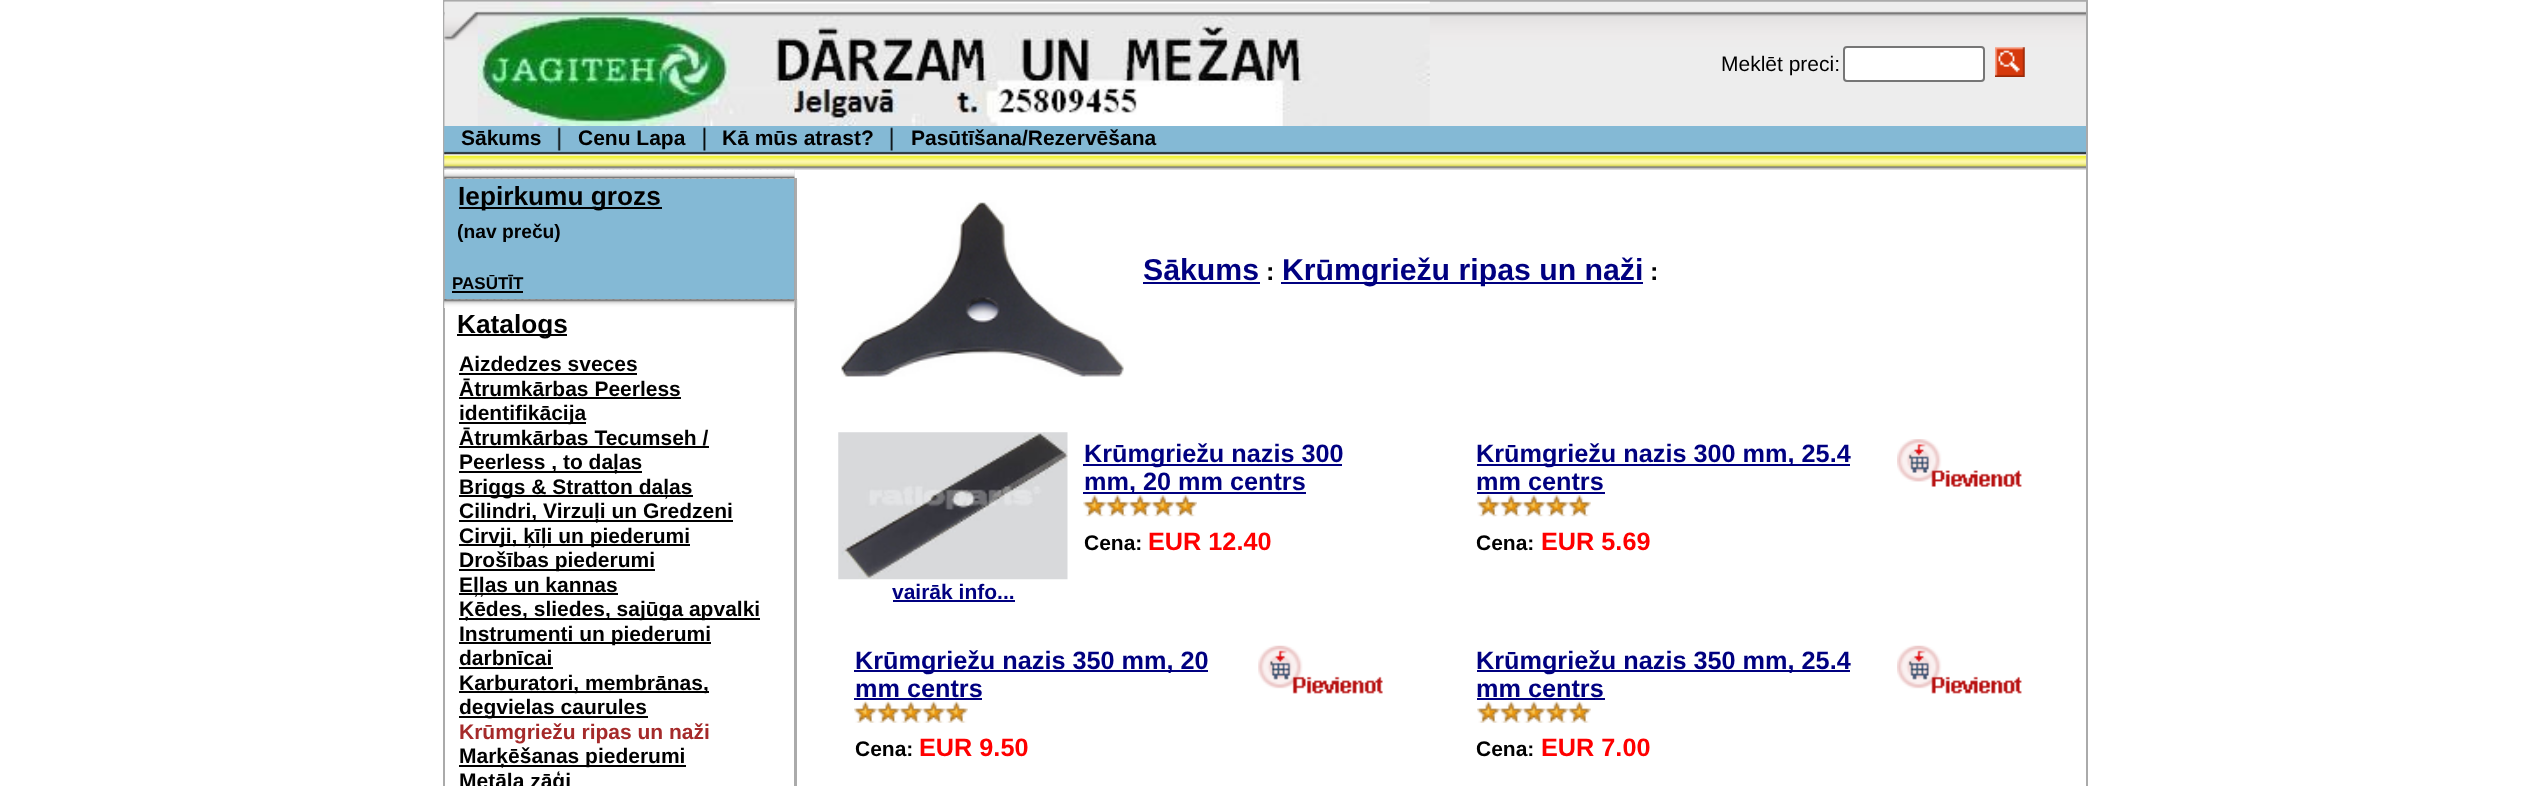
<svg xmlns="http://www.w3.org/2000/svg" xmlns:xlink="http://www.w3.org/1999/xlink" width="2529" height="786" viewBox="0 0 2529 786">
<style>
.cls-1{font:21px Liberation Sans;fill:#000000}
.cls-2{font:bold 21px Liberation Sans;fill:#000000}
.cls-3{font:bold 26.25px Liberation Sans;fill:#000000}
.cls-4{font:bold 19.25px Liberation Sans;fill:#000000}
.cls-5{font:bold 17px Liberation Sans;fill:#000000}
.cls-6{font:bold 21px Liberation Sans;fill:#a52a2a}
.cls-7{font:bold 30.25px Liberation Sans;fill:#000080}
.cls-8{font:bold 25.25px Liberation Sans;fill:#000000}
.cls-9{font:bold 25.25px Liberation Sans;fill:#000080}
.cls-10{font:bold 25.25px Liberation Sans;fill:#ff0000}
.cls-11{font:bold 21px Liberation Sans;fill:#000080}
</style>
<rect width="100%" height="100%" fill="#ffffff"/>
<rect fill="#aaaaaa" x="443" y="0" width="1645" height="786"/>
<rect fill="#ffffff" x="445" y="169" width="1641" height="617"/>
<image xlink:href="image0.png" x="444" y="1" width="1642" height="125"/>
<image xlink:href="image1.png" x="444" y="1" width="34" height="41"/>
<image xlink:href="image2.png" x="477" y="1" width="953" height="125"/>
<rect fill="#ffffff" stroke="#767676" stroke-width="2" x="1844" y="47" width="140" height="34" rx="3"/>
<image xlink:href="image3.png" x="1995" y="47" width="30" height="30"/>
<image xlink:href="image4.png" x="444" y="126" width="1642" height="44"/>
<image xlink:href="image9.png" x="444" y="169" width="351" height="10"/>
<image xlink:href="image10.png" x="444" y="169" width="3" height="10"/>
<image xlink:href="image5.png" x="444" y="126" width="2" height="44"/>
<image xlink:href="image6.png" x="557" y="127" width="4" height="24"/>
<image xlink:href="image7.png" x="703" y="127" width="3" height="24"/>
<image xlink:href="image8.png" x="890" y="127" width="3" height="24"/>
<rect fill="#84b9d5" x="445" y="179" width="350" height="120"/>
<rect fill="#000000" x="459" y="207" width="203" height="2"/>
<rect fill="#000000" x="452" y="291" width="71" height="2"/>
<rect fill="#a6a6a6" fill-opacity="0.94" x="794" y="178" width="3" height="122"/>
<image xlink:href="image11.png" x="444" y="299" width="351" height="9"/>
<image xlink:href="image12.png" x="444" y="299" width="3" height="9"/>
<image xlink:href="image13.png" x="794" y="299" width="4" height="9"/>
<rect fill="#000000" x="457" y="334" width="110" height="2"/>
<rect fill="#ababab" x="794" y="308" width="3" height="478"/>
<rect fill="#000000" x="459" y="373" width="178" height="2"/>
<rect fill="#000000" x="459" y="397" width="222" height="2"/>
<rect fill="#000000" x="459" y="422" width="127" height="2"/>
<rect fill="#000000" x="459" y="446" width="250" height="2"/>
<rect fill="#000000" x="459" y="471" width="183" height="2"/>
<rect fill="#000000" x="459" y="495" width="234" height="2"/>
<rect fill="#000000" x="459" y="520" width="274" height="2"/>
<rect fill="#000000" x="459" y="544" width="231" height="2"/>
<rect fill="#000000" x="459" y="569" width="196" height="2"/>
<rect fill="#000000" x="459" y="593" width="159" height="2"/>
<rect fill="#000000" x="459" y="618" width="301" height="2"/>
<rect fill="#000000" x="459" y="642" width="252" height="2"/>
<rect fill="#000000" x="459" y="667" width="94" height="2"/>
<rect fill="#000000" x="459" y="691" width="250" height="2"/>
<rect fill="#000000" x="459" y="716" width="189" height="2"/>
<rect fill="#000000" x="459" y="765" width="227" height="2"/>
<image xlink:href="image14.png" x="841" y="200" width="283" height="177"/>
<rect fill="#000080" x="1143" y="282" width="117" height="2"/>
<rect fill="#000080" x="1281" y="282" width="362" height="2"/>
<rect fill="#000080" x="1083" y="464" width="259" height="2"/>
<rect fill="#000080" x="1083" y="492" width="223" height="2"/>
<image xlink:href="image15.png" x="1083" y="495" width="23" height="22"/>
<image xlink:href="image16.png" x="1106" y="495" width="23" height="22"/>
<image xlink:href="image17.png" x="1129" y="495" width="23" height="22"/>
<image xlink:href="image18.png" x="1151" y="495" width="24" height="22"/>
<image xlink:href="image19.png" x="1174" y="495" width="23" height="22"/>
<image xlink:href="image20.png" x="838" y="432" width="230" height="148"/>
<rect fill="#000080" x="893" y="600" width="122" height="2"/>
<rect fill="#000080" x="1477" y="464" width="373" height="2"/>
<rect fill="#000080" x="1477" y="492" width="128" height="2"/>
<image xlink:href="image16.png" x="1477" y="495" width="23" height="22"/>
<image xlink:href="image17.png" x="1500" y="495" width="23" height="22"/>
<image xlink:href="image21.png" x="1522" y="495" width="24" height="22"/>
<image xlink:href="image19.png" x="1545" y="495" width="23" height="22"/>
<image xlink:href="image16.png" x="1568" y="495" width="23" height="22"/>
<image xlink:href="image22.png" x="1897" y="439" width="125" height="48"/>
<rect fill="#000080" x="854" y="670" width="354" height="2"/>
<rect fill="#000080" x="854" y="698" width="128" height="2"/>
<image xlink:href="image23.png" x="854" y="701" width="23" height="22"/>
<image xlink:href="image24.png" x="877" y="701" width="23" height="22"/>
<image xlink:href="image25.png" x="899" y="701" width="24" height="22"/>
<image xlink:href="image26.png" x="922" y="701" width="23" height="22"/>
<image xlink:href="image23.png" x="945" y="701" width="23" height="22"/>
<image xlink:href="image27.png" x="1258" y="645" width="125" height="49"/>
<rect fill="#000080" x="1477" y="670" width="373" height="2"/>
<rect fill="#000080" x="1477" y="698" width="128" height="2"/>
<image xlink:href="image23.png" x="1477" y="701" width="23" height="22"/>
<image xlink:href="image28.png" x="1500" y="701" width="23" height="22"/>
<image xlink:href="image29.png" x="1522" y="701" width="24" height="22"/>
<image xlink:href="image26.png" x="1545" y="701" width="23" height="22"/>
<image xlink:href="image23.png" x="1568" y="701" width="23" height="22"/>
<image xlink:href="image30.png" x="1897" y="645" width="125" height="49"/>
<text class="cls-1" x="1721" y="71">Meklēt preci:</text>
<text class="cls-2" x="461" y="145">Sākums</text>
<text class="cls-2" x="578" y="145">Cenu Lapa</text>
<text class="cls-2" x="722" y="145">Kā mūs atrast?</text>
<text class="cls-2" x="911" y="145">Pasūtīšana/Rezervēšana</text>
<text class="cls-3" x="458" y="205">Iepirkumu grozs</text>
<text class="cls-4" x="457" y="238">(nav preču)</text>
<text class="cls-5" x="452" y="289">PASŪTĪT</text>
<text class="cls-3" x="457" y="333">Katalogs</text>
<text class="cls-2"><tspan x="459" y="371">Aizdedzes sveces</tspan><tspan x="459" y="396">Ātrumkārbas Peerless</tspan><tspan x="459" y="420">identifikācija</tspan><tspan x="459" y="445">Ātrumkārbas Tecumseh /</tspan><tspan x="459" y="469">Peerless , to daļas</tspan><tspan x="459" y="494">Briggs &amp; Stratton daļas</tspan><tspan x="459" y="518">Cilindri, Virzuļi un Gredzeni</tspan><tspan x="459" y="543">Cirvji, ķīļi un piederumi</tspan><tspan x="459" y="567">Drošības piederumi</tspan><tspan x="459" y="592">Eļļas un kannas</tspan><tspan x="459" y="616">Ķēdes, sliedes, sajūga apvalki</tspan><tspan x="459" y="641">Instrumenti un piederumi</tspan><tspan x="459" y="665">darbnīcai</tspan><tspan x="459" y="690">Karburatori, membrānas,</tspan><tspan x="459" y="714">degvielas caurules</tspan></text>
<text class="cls-6" x="459" y="739">Krūmgriežu ripas un naži</text>
<text class="cls-2"><tspan x="459" y="763">Marķēšanas piederumi</tspan><tspan x="459" y="788">Metāla zāģi</tspan></text>
<text class="cls-7" x="1143" y="280">Sākums</text>
<text class="cls-8" x="1266" y="280">:</text>
<text class="cls-7" x="1282" y="280">Krūmgriežu ripas un naži</text>
<text class="cls-8" x="1650" y="280">:</text>
<text class="cls-9"><tspan x="1084" y="462">Krūmgriežu nazis 300</tspan><tspan x="1084" y="490">mm, 20 mm centrs</tspan></text>
<text class="cls-2" x="1084" y="550">Cena:</text>
<text class="cls-10" x="1148" y="550">EUR 12.40</text>
<text class="cls-11" x="892" y="599">vairāk info...</text>
<text class="cls-9"><tspan x="1476" y="462">Krūmgriežu nazis 300 mm, 25.4</tspan><tspan x="1476" y="490">mm centrs</tspan></text>
<text class="cls-2" x="1476" y="550">Cena:</text>
<text class="cls-10" x="1541" y="550">EUR 5.69</text>
<text class="cls-9"><tspan x="855" y="669">Krūmgriežu nazis 350 mm, 20</tspan><tspan x="855" y="697">mm centrs</tspan></text>
<text class="cls-2" x="855" y="756">Cena:</text>
<text class="cls-10" x="919" y="756">EUR 9.50</text>
<text class="cls-9"><tspan x="1476" y="669">Krūmgriežu nazis 350 mm, 25.4</tspan><tspan x="1476" y="697">mm centrs</tspan></text>
<text class="cls-2" x="1476" y="756">Cena:</text>
<text class="cls-10" x="1541" y="756">EUR 7.00</text>
</svg>
